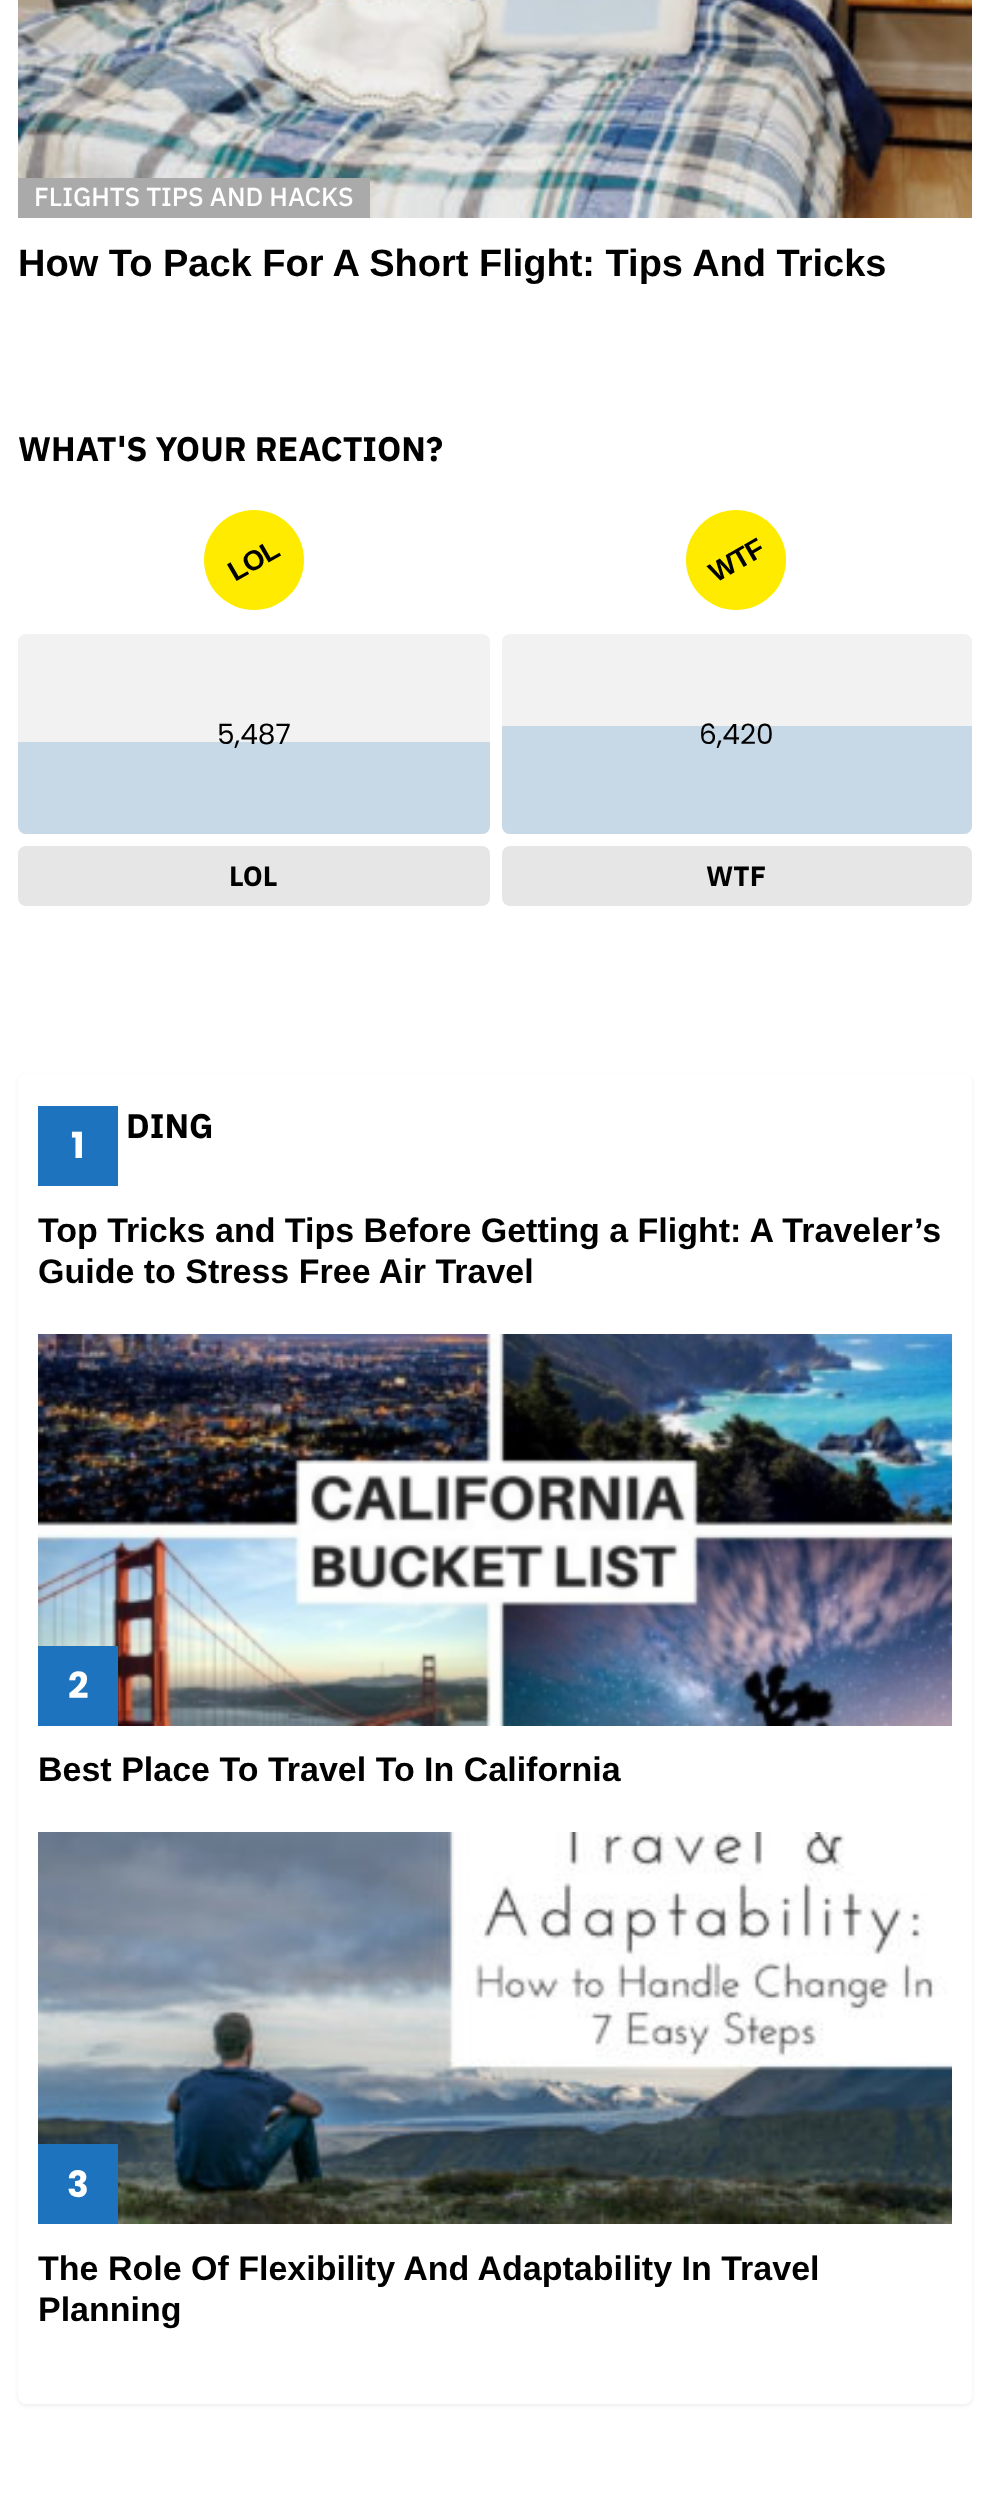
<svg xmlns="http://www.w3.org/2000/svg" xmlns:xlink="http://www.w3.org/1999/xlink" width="989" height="2505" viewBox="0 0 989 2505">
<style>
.cls-1{font:500 26px IBM Plex Sans;fill:#ffffff}
.cls-2{font:bold 38px Liberation Sans;fill:#000000}
.cls-3{font:bold 34px IBM Plex Sans;fill:#000000}
.cls-4{font:bold 28px Liberation Sans;letter-spacing:-1px;fill:#000000}
.cls-5{font:28px Poppins;fill:#000000}
.cls-6{font:bold 28px IBM Plex Sans;fill:#000000}
.cls-7{font:bold 36px Poppins;fill:#ffffff}
.cls-8{font:bold 34px Liberation Sans;fill:#000000}
</style>
<rect width="100%" height="100%" fill="#ffffff"/>
<image xlink:href="image0.png" x="18" y="0" width="954" height="218"/>
<rect fill="#aaaaaa" x="18" y="178" width="352" height="40"/>
<circle fill="#feeb00" cx="254" cy="560" r="50"/>
<rect fill="#f2f2f2" x="18" y="634" width="472" height="200" rx="8"/>
<path fill="#1e73be" fill-opacity="0.2" d="M18 742H490V826C490 830.5 486.5 834 482 834H26C21.5 834 18 830.5 18 826Z"/>
<rect fill="#e6e6e6" stroke="#e6e6e6" stroke-width="4" x="20" y="848" width="468" height="56" rx="6"/>
<circle fill="#feeb00" cx="736" cy="560" r="50"/>
<rect fill="#f2f2f2" x="502" y="634" width="470" height="200" rx="8"/>
<path fill="#1e73be" fill-opacity="0.2" d="M502 726H972V826C972 830.5 968.5 834 964 834H510C505.5 834 502 830.5 502 826Z"/>
<rect fill="#e6e6e6" stroke="#e6e6e6" stroke-width="4" x="504" y="848" width="466" height="56" rx="6"/>
<rect fill="#000000" fill-opacity="0.07" filter="blur(2px)" x="18" y="1076" width="954" height="1330" rx="8"/>
<rect fill="#ffffff" x="18" y="1074" width="954" height="1330" rx="8"/>
<rect fill="#1e73be" x="38" y="1106" width="80" height="80"/>
<image xlink:href="image1.png" x="38" y="1334" width="914" height="392"/>
<rect fill="#1e73be" x="38" y="1646" width="80" height="80"/>
<image xlink:href="image2.png" x="38" y="1832" width="914" height="392"/>
<rect fill="#1e73be" x="38" y="2144" width="80" height="80"/>
<text class="cls-1" x="34" y="206">FLIGHTS TIPS AND HACKS</text>
<text class="cls-2" x="18" y="276">How To Pack For A Short Flight: Tips And Tricks</text>
<text class="cls-3" x="18" y="461">WHAT'S YOUR REACTION?</text>
<text class="cls-4" x="235" y="582" transform="rotate(-30 235 582)">LOL</text>
<text class="cls-5" x="217" y="744">5,487</text>
<text class="cls-6" x="229" y="886">LOL</text>
<text class="cls-4" x="716" y="583" transform="rotate(-30 716 583)">WTF</text>
<text class="cls-5" x="699" y="744">6,420</text>
<text class="cls-6" x="706" y="886">WTF</text>
<text class="cls-3" x="126" y="1138">DING</text>
<text class="cls-7" x="71" y="1158">1</text>
<text class="cls-8"><tspan x="38" y="1242">Top Tricks and Tips Before Getting a Flight: A Traveler’s</tspan><tspan x="38" y="1283">Guide to Stress Free Air Travel</tspan></text>
<text class="cls-7" x="68" y="1698">2</text>
<text class="cls-8" x="38" y="1781">Best Place To Travel To In California</text>
<text class="cls-7" x="67" y="2197">3</text>
<text class="cls-8"><tspan x="38" y="2280">The Role Of Flexibility And Adaptability In Travel</tspan><tspan x="38" y="2321">Planning</tspan></text>
</svg>
